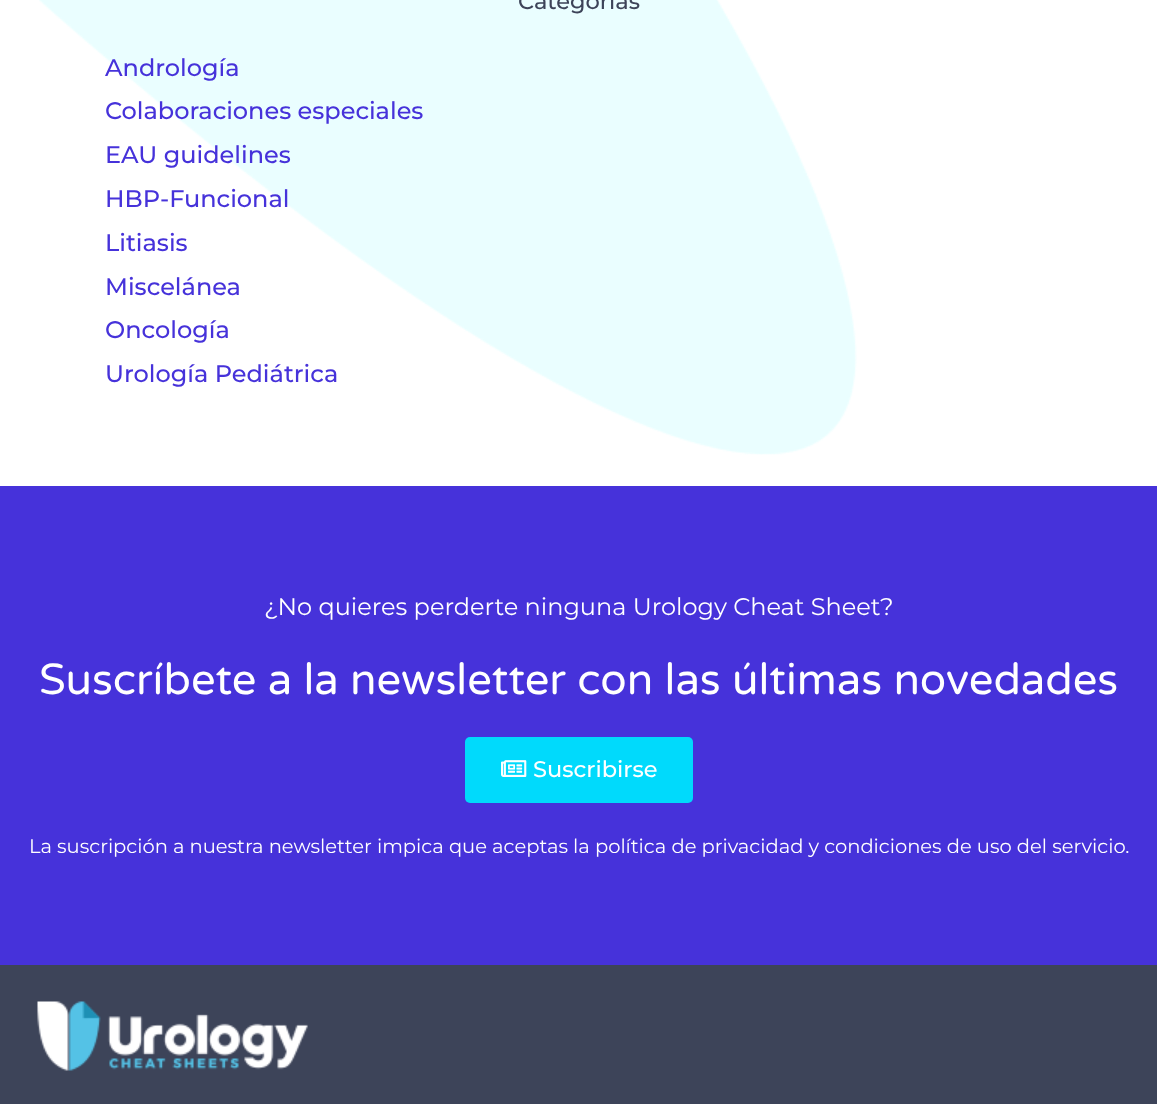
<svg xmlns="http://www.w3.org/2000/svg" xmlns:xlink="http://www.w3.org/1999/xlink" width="1157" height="1104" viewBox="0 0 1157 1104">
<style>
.cls-1{font:500 22.5px Montserrat;fill:#3d4459}
.cls-2{font:500 24px Montserrat;fill:#4632da}
.cls-3{font:24px Montserrat;fill:#ffffff}
.cls-4{font:43.5px Varela Round;fill:#ffffff}
.cls-5{font:500 22.5px Montserrat;fill:#ffffff}
.cls-6{font:19.5px Montserrat;fill:#ffffff}
</style>
<rect width="100%" height="100%" fill="#ffffff"/>
<image xlink:href="image0.png" x="39" y="0" width="818" height="455"/>
<rect fill="#4632da" x="0" y="486" width="1157" height="479"/>
<rect fill="#00dafc" x="465" y="737" width="228" height="66" rx="5"/>
<image xlink:href="image1.png" x="501" y="760" width="26" height="17"/>
<rect fill="#3d4459" x="0" y="965" width="1157" height="139"/>
<image xlink:href="image2.png" x="37" y="1001" width="271" height="70"/>
<text class="cls-1" x="518" y="9">Categorías</text>
<text class="cls-2"><tspan x="105" y="76">Andrología</tspan><tspan x="105" y="119">Colaboraciones especiales</tspan><tspan x="105" y="163">EAU guidelines</tspan><tspan x="105" y="207">HBP-Funcional</tspan><tspan x="105" y="251">Litiasis</tspan><tspan x="105" y="295">Miscelánea</tspan><tspan x="105" y="338">Oncología</tspan><tspan x="105" y="382">Urología Pediátrica</tspan></text>
<text class="cls-3" x="264" y="615">¿No quieres perderte ninguna Urology Cheat Sheet?</text>
<text class="cls-4" x="39" y="694">Suscríbete a la newsletter con las últimas novedades</text>
<text class="cls-5" x="533" y="777">Suscribirse</text>
<text class="cls-6" x="29" y="853">La suscripción a nuestra newsletter impica que aceptas la política de privacidad y condiciones de uso del servicio.</text>
</svg>
